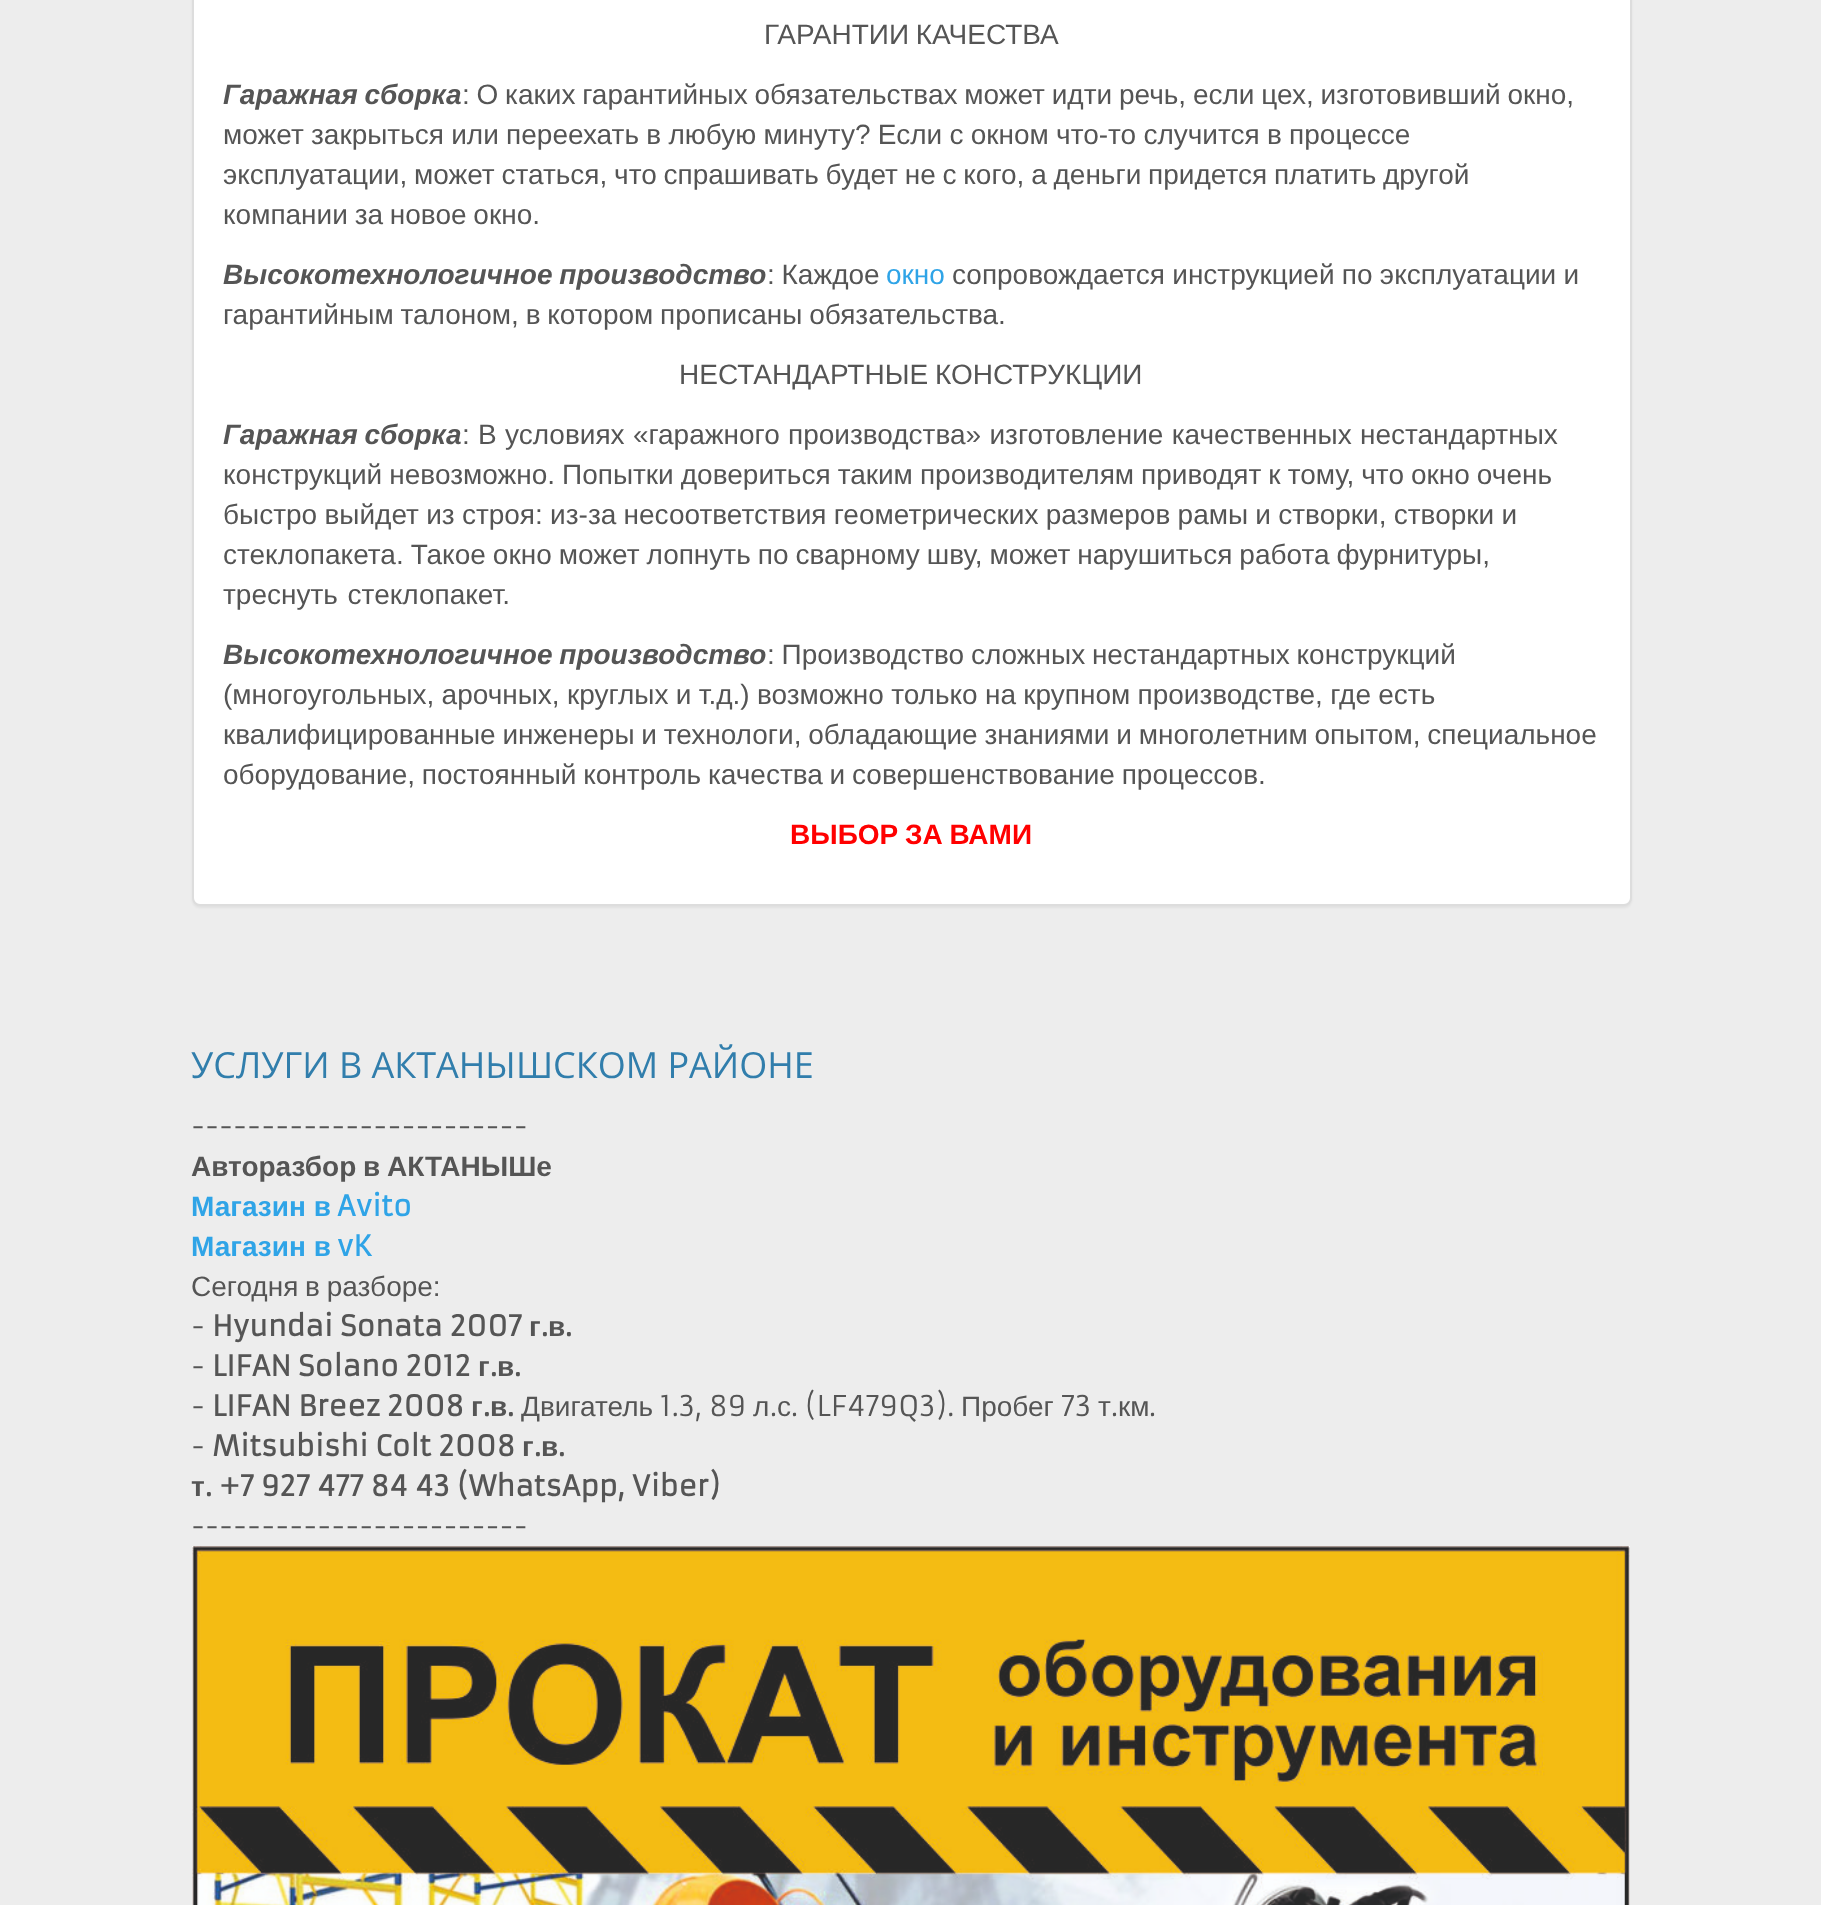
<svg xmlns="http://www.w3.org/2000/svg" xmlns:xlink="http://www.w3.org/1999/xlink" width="1821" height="1905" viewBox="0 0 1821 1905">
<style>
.cls-1{font:28px Liberation Sans;fill:#555555}
.cls-2{font:italic bold 28px Liberation Sans;fill:#555555}
.cls-3{font:28px Liberation Sans;fill:#2fa4e7}
.cls-4{font:bold 28px Liberation Sans;fill:#ff0000}
.cls-5{font:36px Open Sans;fill:#317eac}
.cls-6{font:28px Armata;fill:#555555}
.cls-7{font:bold 28px Liberation Sans;fill:#555555}
.cls-8{font:bold 28px Liberation Sans;fill:#2fa4e7}
.cls-9{font:bold 28px Armata;fill:#2fa4e7}
.cls-10{font:bold 28px Armata;fill:#555555}
</style>
<rect width="100%" height="100%" fill="#ededed"/>
<rect fill="#000000" fill-opacity="0.05" filter="blur(1px)" x="192" y="-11" width="1440" height="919" rx="8"/>
<rect fill="#ffffff" stroke="#dddddd" stroke-width="2" x="193" y="-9" width="1438" height="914" rx="7"/>
<image xlink:href="image0.png" x="192" y="1546" width="1438" height="359"/>
<text class="cls-1" x="764" y="44" word-spacing="-1">ГАРАНТИИ КАЧЕСТВА</text>
<text class="cls-2" x="223" y="104" word-spacing="-1">Гаражная сборка</text>
<text class="cls-1" x="462" y="104" word-spacing="-1">: О каких гарантийных обязательствах может идти речь, если цех, изготовивший окно,</text>
<text class="cls-1"><tspan x="223" y="144" word-spacing="-0.5">может закрыться или переехать в любую минуту? Если с окном что-то случится в процессе</tspan><tspan x="223" y="184" word-spacing="-1">эксплуатации, может статься, что спрашивать будет не с кого, а деньги придется платить другой</tspan><tspan x="223" y="224" word-spacing="-1">компании за новое окно.</tspan></text>
<text class="cls-2" x="223" y="284" word-spacing="-1">Высокотехнологичное производство</text>
<text class="cls-1" x="767" y="284" word-spacing="-1">: Каждое</text>
<text class="cls-3" x="886" y="284">окно</text>
<text class="cls-1" x="952" y="284" word-spacing="-0.5">сопровождается инструкцией по эксплуатации и</text>
<text class="cls-1" x="223" y="324" word-spacing="-1">гарантийным талоном, в котором прописаны обязательства.</text>
<text class="cls-1" x="679" y="384" word-spacing="-1">НЕСТАНДАРТНЫЕ КОНСТРУКЦИИ</text>
<text class="cls-2" x="223" y="444" word-spacing="-1">Гаражная сборка</text>
<text class="cls-1" x="462" y="444" word-spacing="0.5">: В условиях «гаражного производства» изготовление качественных нестандартных</text>
<text class="cls-1"><tspan x="223" y="484" word-spacing="-0.75">конструкций невозможно. Попытки довериться таким производителям приводят к тому, что окно очень</tspan><tspan x="223" y="524" word-spacing="-0.5">быстро выйдет из строя: из-за несоответствия геометрических размеров рамы и створки, створки и</tspan><tspan x="223" y="564" word-spacing="-0.75">стеклопакета. Такое окно может лопнуть по сварному шву, может нарушиться работа фурнитуры,</tspan><tspan x="223" y="604" word-spacing="2">треснуть стеклопакет.</tspan></text>
<text class="cls-2" x="223" y="664" word-spacing="-1">Высокотехнологичное производство</text>
<text class="cls-1" x="767" y="664" word-spacing="-1">: Производство сложных нестандартных конструкций</text>
<text class="cls-1"><tspan x="223" y="704" word-spacing="-0.5">(многоугольных, арочных, круглых и т.д.) возможно только на крупном производстве, где есть</tspan><tspan x="223" y="744" word-spacing="-1">квалифицированные инженеры и технологи, обладающие знаниями и многолетним опытом, специальное</tspan><tspan x="223" y="784" word-spacing="-1">оборудование, постоянный контроль качества и совершенствование процессов.</tspan></text>
<text class="cls-4" x="790" y="844" word-spacing="-1">ВЫБОР ЗА ВАМИ</text>
<text class="cls-5" x="191" y="1078">УСЛУГИ В АКТАНЫШСКОМ РАЙОНЕ</text>
<text class="cls-6" x="191" y="1136">------------------------</text>
<text class="cls-7" x="191" y="1176" word-spacing="-1">Авторазбор в АКТАНЫШе</text>
<text class="cls-8" x="191" y="1216">Магазин в</text>
<text class="cls-9" x="337" y="1216">Avito</text>
<text class="cls-8" x="191" y="1256">Магазин в</text>
<text class="cls-9" x="337" y="1256">vK</text>
<text class="cls-1" x="191" y="1296" word-spacing="-1">Сегодня в разборе:</text>
<text class="cls-6" x="191" y="1336">-</text>
<text class="cls-10" x="212" y="1336">Hyundai Sonata 2007</text>
<text class="cls-7" x="529" y="1336">г</text>
<text class="cls-7" x="548" y="1336">в</text>
<text class="cls-10" x="541" y="1336">.</text>
<text class="cls-10" x="565" y="1336">.</text>
<text class="cls-6" x="191" y="1376">-</text>
<text class="cls-10" x="212" y="1376">LIFAN Solano 2012</text>
<text class="cls-7" x="478" y="1376">г</text>
<text class="cls-7" x="497" y="1376">в</text>
<text class="cls-10" x="490" y="1376">.</text>
<text class="cls-10" x="514" y="1376">.</text>
<text class="cls-6" x="191" y="1416">-</text>
<text class="cls-10" x="212" y="1416">LIFAN Breez 2008</text>
<text class="cls-7" x="471" y="1416">г</text>
<text class="cls-7" x="490" y="1416">в</text>
<text class="cls-1" x="521" y="1416">Двигатель</text>
<text class="cls-6" x="660" y="1416">1.3, 89</text>
<text class="cls-1" x="753" y="1416">л</text>
<text class="cls-1" x="777" y="1416">с</text>
<text class="cls-6" x="791" y="1416">. (LF479Q3).</text>
<text class="cls-1" x="961" y="1416">Пробег</text>
<text class="cls-6" x="1061" y="1416">73</text>
<text class="cls-1" x="1098" y="1416">т</text>
<text class="cls-1" x="1118" y="1416">км</text>
<text class="cls-10" x="483" y="1416">.</text>
<text class="cls-10" x="507" y="1416">.</text>
<text class="cls-6" x="770" y="1416">.</text>
<text class="cls-6" x="1111" y="1416">.</text>
<text class="cls-6" x="1149" y="1416">.</text>
<text class="cls-6" x="191" y="1456">-</text>
<text class="cls-10" x="212" y="1456">Mitsubishi Colt 2008</text>
<text class="cls-7" x="522" y="1456">г</text>
<text class="cls-7" x="541" y="1456">в</text>
<text class="cls-10" x="534" y="1456">.</text>
<text class="cls-10" x="558" y="1456">.</text>
<text class="cls-7" x="191" y="1496">т</text>
<text class="cls-10" x="205" y="1496">. +7 927 477 84 43 (WhatsApp, Viber)</text>
<text class="cls-6" x="191" y="1536">------------------------</text>
</svg>
